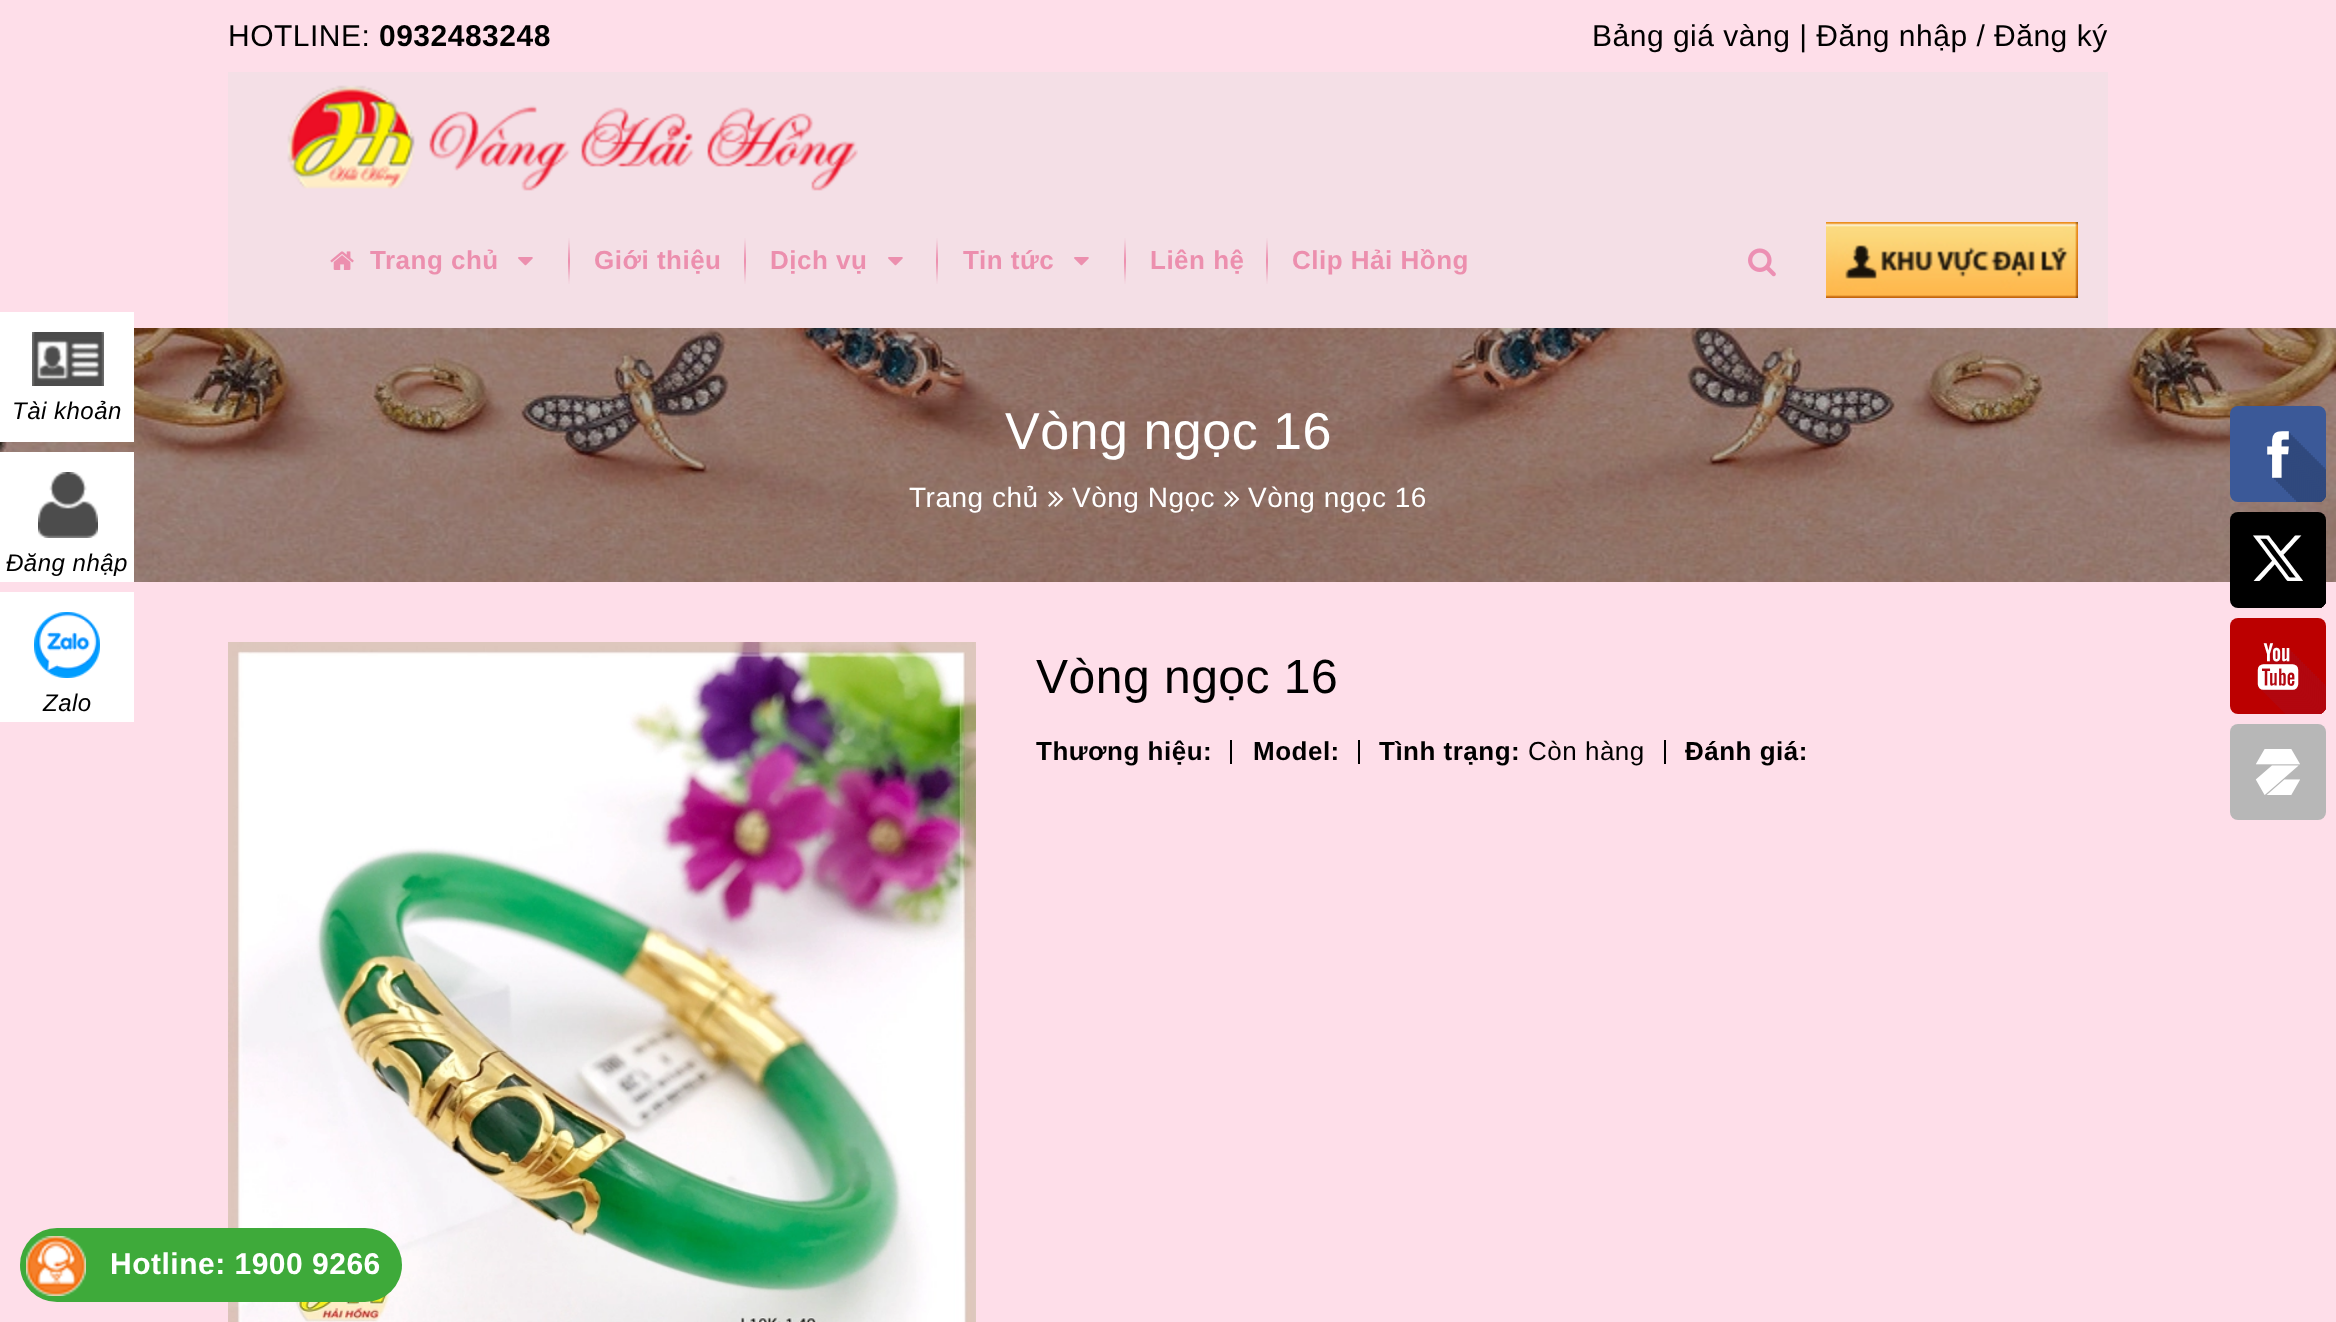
<svg xmlns="http://www.w3.org/2000/svg" xmlns:xlink="http://www.w3.org/1999/xlink" width="2336" height="1322" viewBox="0 0 2336 1322">
<style>
.cls-1{font:30px Liberation Sans;letter-spacing:0.5px;fill:#000000}
.cls-2{font:bold 30px Liberation Sans;letter-spacing:0.5px;fill:#000000}
.cls-3{font:bold 26px Liberation Sans;letter-spacing:0.5px;fill:#ec8fae}
.cls-4{font:italic 24px Liberation Sans;letter-spacing:0.5px;fill:#000000}
.cls-5{font:52px Liberation Sans;letter-spacing:0.5px;fill:#ffffff}
.cls-6{font:28px Liberation Sans;letter-spacing:0.5px;fill:#ffffff}
.cls-7{font:48px Liberation Sans;letter-spacing:0.5px;fill:#000000}
.cls-8{font:bold 26px Liberation Sans;letter-spacing:0.5px;fill:#000000}
.cls-9{font:26px Liberation Sans;letter-spacing:0.5px;fill:#000000}
.cls-10{font:bold 30px Liberation Sans;letter-spacing:0.5px;fill:#ffffff}
</style>
<rect width="100%" height="100%" fill="#fedee9"/>
<rect fill="#f4dfe6" x="228" y="72" width="1880" height="256"/>
<image xlink:href="image0.png" x="287" y="85" width="571" height="106"/>
<image xlink:href="image1.png" x="568" y="238" width="2" height="46"/>
<image xlink:href="image2.png" x="330" y="251" width="24" height="19"/>
<image xlink:href="image3.png" x="518" y="257" width="15" height="9"/>
<image xlink:href="image1.png" x="744" y="238" width="2" height="46"/>
<image xlink:href="image1.png" x="936" y="238" width="2" height="46"/>
<image xlink:href="image3.png" x="888" y="257" width="15" height="9"/>
<image xlink:href="image1.png" x="1124" y="238" width="2" height="46"/>
<image xlink:href="image3.png" x="1074" y="257" width="15" height="9"/>
<image xlink:href="image1.png" x="1266" y="238" width="2" height="46"/>
<image xlink:href="image4.png" x="1748" y="248" width="28" height="29"/>
<image xlink:href="image5.png" x="1826" y="222" width="252" height="76"/>
<image xlink:href="image9.png" x="0" y="328" width="2336" height="254"/>
<rect fill="#ffffff" x="0" y="312" width="134" height="130"/>
<image xlink:href="image6.png" x="32" y="332" width="72" height="54"/>
<rect fill="#ffffff" x="0" y="452" width="134" height="130"/>
<image xlink:href="image7.png" x="38" y="472" width="60" height="66"/>
<rect fill="#ffffff" x="0" y="592" width="134" height="130"/>
<image xlink:href="image8.png" x="34" y="612" width="66" height="66"/>
<image xlink:href="image10.png" x="1048" y="491" width="16" height="16"/>
<image xlink:href="image11.png" x="1224" y="491" width="16" height="16"/>
<image xlink:href="image12.png" x="2230" y="406" width="96" height="414"/>
<image xlink:href="image13.png" x="228" y="642" width="748" height="680"/>
<rect fill="#000000" x="1230" y="740" width="2" height="24"/>
<rect fill="#000000" x="1358" y="740" width="2" height="24"/>
<rect fill="#000000" x="1664" y="740" width="2" height="24"/>
<rect fill="#3eaa3a" x="20" y="1228" width="382" height="74" rx="37"/>
<image xlink:href="image14.png" x="26" y="1236" width="60" height="60"/>
<text class="cls-1" x="228" y="46">HOTLINE:</text>
<text class="cls-2" x="379" y="46">0932483248</text>
<text class="cls-1" x="1592" y="46">Bảng giá vàng | Đăng nhập / Đăng ký</text>
<text class="cls-3" x="370" y="269">Trang chủ</text>
<text class="cls-3" x="594" y="269">Giới thiệu</text>
<text class="cls-3" x="770" y="269">Dịch vụ</text>
<text class="cls-3" x="963" y="269">Tin tức</text>
<text class="cls-3" x="1150" y="269">Liên hệ</text>
<text class="cls-3" x="1292" y="269">Clip Hải Hồng</text>
<text class="cls-4" x="12" y="419">Tài khoản</text>
<text class="cls-4" x="6" y="571">Đăng nhập</text>
<text class="cls-4" x="43" y="711">Zalo</text>
<text class="cls-5" x="1005" y="449">Vòng ngọc 16</text>
<text class="cls-6" x="909" y="507">Trang chủ</text>
<text class="cls-6" x="1072" y="507">Vòng Ngọc</text>
<text class="cls-6" x="1248" y="507">Vòng ngọc 16</text>
<text class="cls-7" x="1036" y="693">Vòng ngọc 16</text>
<text class="cls-8" x="1036" y="760">Thương hiệu:</text>
<text class="cls-8" x="1253" y="760">Model:</text>
<text class="cls-8" x="1379" y="760">Tình trạng:</text>
<text class="cls-9" x="1528" y="760">Còn hàng</text>
<text class="cls-8" x="1685" y="760">Đánh giá:</text>
<text class="cls-10" x="110" y="1274">Hotline: 1900 9266</text>
</svg>
